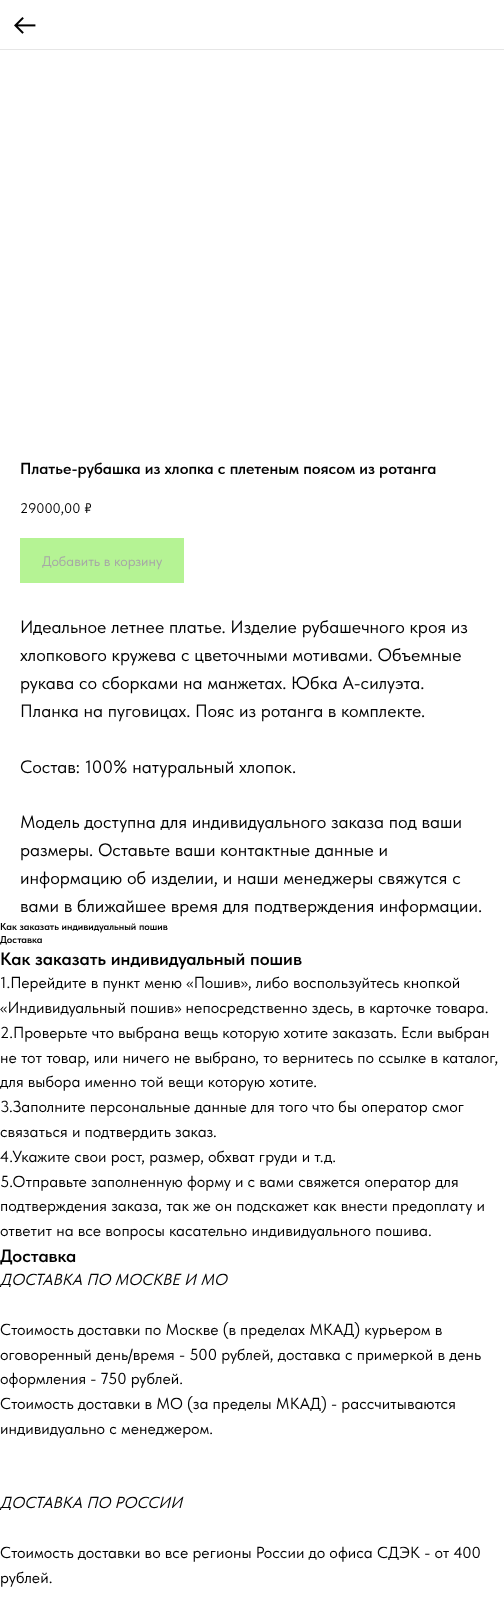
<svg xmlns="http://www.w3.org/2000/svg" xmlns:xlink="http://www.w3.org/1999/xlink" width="504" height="1602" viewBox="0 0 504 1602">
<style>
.cls-1{font:600 16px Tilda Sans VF;fill:#000000}
.cls-2{font:14px Tilda Sans VF;fill:#000000}
.cls-3{font:14px Tilda Sans VF;fill:#a6a6a6}
.cls-4{font:18px Tilda Sans VF;fill:#000000}
.cls-5{font:600 10px Tilda Sans VF;fill:#000000}
.cls-6{font:600 18px Tilda Sans VF;fill:#000000}
.cls-7{font:16px Tilda Sans VF;fill:#000000}
.cls-8{font:italic 16px Tilda Sans VF;fill:#000000}
</style>
<rect width="100%" height="100%" fill="#ffffff"/>
<rect fill="#e6e6e6" x="0" y="49" width="504" height="1"/>
<image xlink:href="image0.png" x="14" y="17" width="22" height="17"/>
<rect fill="#b5f394" x="20" y="538" width="164" height="45"/>
<text class="cls-1" x="20" y="474">Платье-рубашка из хлопка с плетеным поясом из ротанга</text>
<text class="cls-2" x="20" y="513">29000,00 ₽</text>
<text class="cls-3" x="42" y="566">Добавить в корзину</text>
<text class="cls-4"><tspan x="20" y="633">Идеальное летнее платье. Изделие рубашечного кроя из</tspan><tspan x="20" y="661">хлопкового кружева с цветочными мотивами. Объемные</tspan><tspan x="20" y="689">рукава со сборками на манжетах. Юбка А-силуэта.</tspan><tspan x="20" y="717">Планка на пуговицах. Пояс из ротанга в комплекте.</tspan></text>
<text class="cls-4" x="20" y="773">Состав: 100% натуральный хлопок.</text>
<text class="cls-4"><tspan x="20" y="828">Модель доступна для индивидуального заказа под ваши</tspan><tspan x="20" y="856">размеры. Оставьте ваши контактные данные и</tspan><tspan x="20" y="884">информацию об изделии, и наши менеджеры свяжутся с</tspan><tspan x="20" y="912">вами в ближайшее время для подтверждения информации.</tspan></text>
<text class="cls-5"><tspan x="0" y="930">Как заказать индивидуальный пошив</tspan><tspan x="0" y="943">Доставка</tspan></text>
<text class="cls-6" x="0" y="965">Как заказать индивидуальный пошив</text>
<text class="cls-7"><tspan x="0" y="988">1.Перейдите в пункт меню «Пошив», либо воспользуйтесь кнопкой</tspan><tspan x="0" y="1013">«Индивидуальный пошив» непосредственно здесь, в карточке товара.</tspan><tspan x="0" y="1038">2.Проверьте что выбрана вещь которую хотите заказать. Если выбран</tspan><tspan x="0" y="1063">не тот товар, или ничего не выбрано, то вернитесь по ссылке в каталог,</tspan><tspan x="0" y="1087">для выбора именно той вещи которую хотите.</tspan><tspan x="0" y="1112">3.Заполните персональные данные для того что бы оператор смог</tspan><tspan x="0" y="1137">связаться и подтвердить заказ.</tspan><tspan x="0" y="1162">4.Укажите свои рост, размер, обхват груди и т.д.</tspan><tspan x="0" y="1187">5.Отправьте заполненную форму и с вами свяжется оператор для</tspan><tspan x="0" y="1211">подтверждения заказа, так же он подскажет как внести предоплату и</tspan><tspan x="0" y="1236">ответит на все вопросы касательно индивидуального пошива.</tspan></text>
<text class="cls-6" x="0" y="1262">Доставка</text>
<text class="cls-8" x="0" y="1285">ДОСТАВКА ПО МОСКВЕ И МО</text>
<text class="cls-7"><tspan x="0" y="1335">Стоимость доставки по Москве (в пределах МКАД) курьером в</tspan><tspan x="0" y="1360">оговоренный день/время - 500 рублей, доставка с примеркой в день</tspan><tspan x="0" y="1384">оформления - 750 рублей.</tspan><tspan x="0" y="1409">Стоимость доставки в МО (за пределы МКАД) - рассчитываются</tspan><tspan x="0" y="1434">индивидуально с менеджером.</tspan></text>
<text class="cls-8" x="0" y="1508">ДОСТАВКА ПО РОССИИ</text>
<text class="cls-7"><tspan x="0" y="1558">Стоимость доставки во все регионы России до офиса СДЭК - от 400</tspan><tspan x="0" y="1583">рублей.</tspan></text>
</svg>
